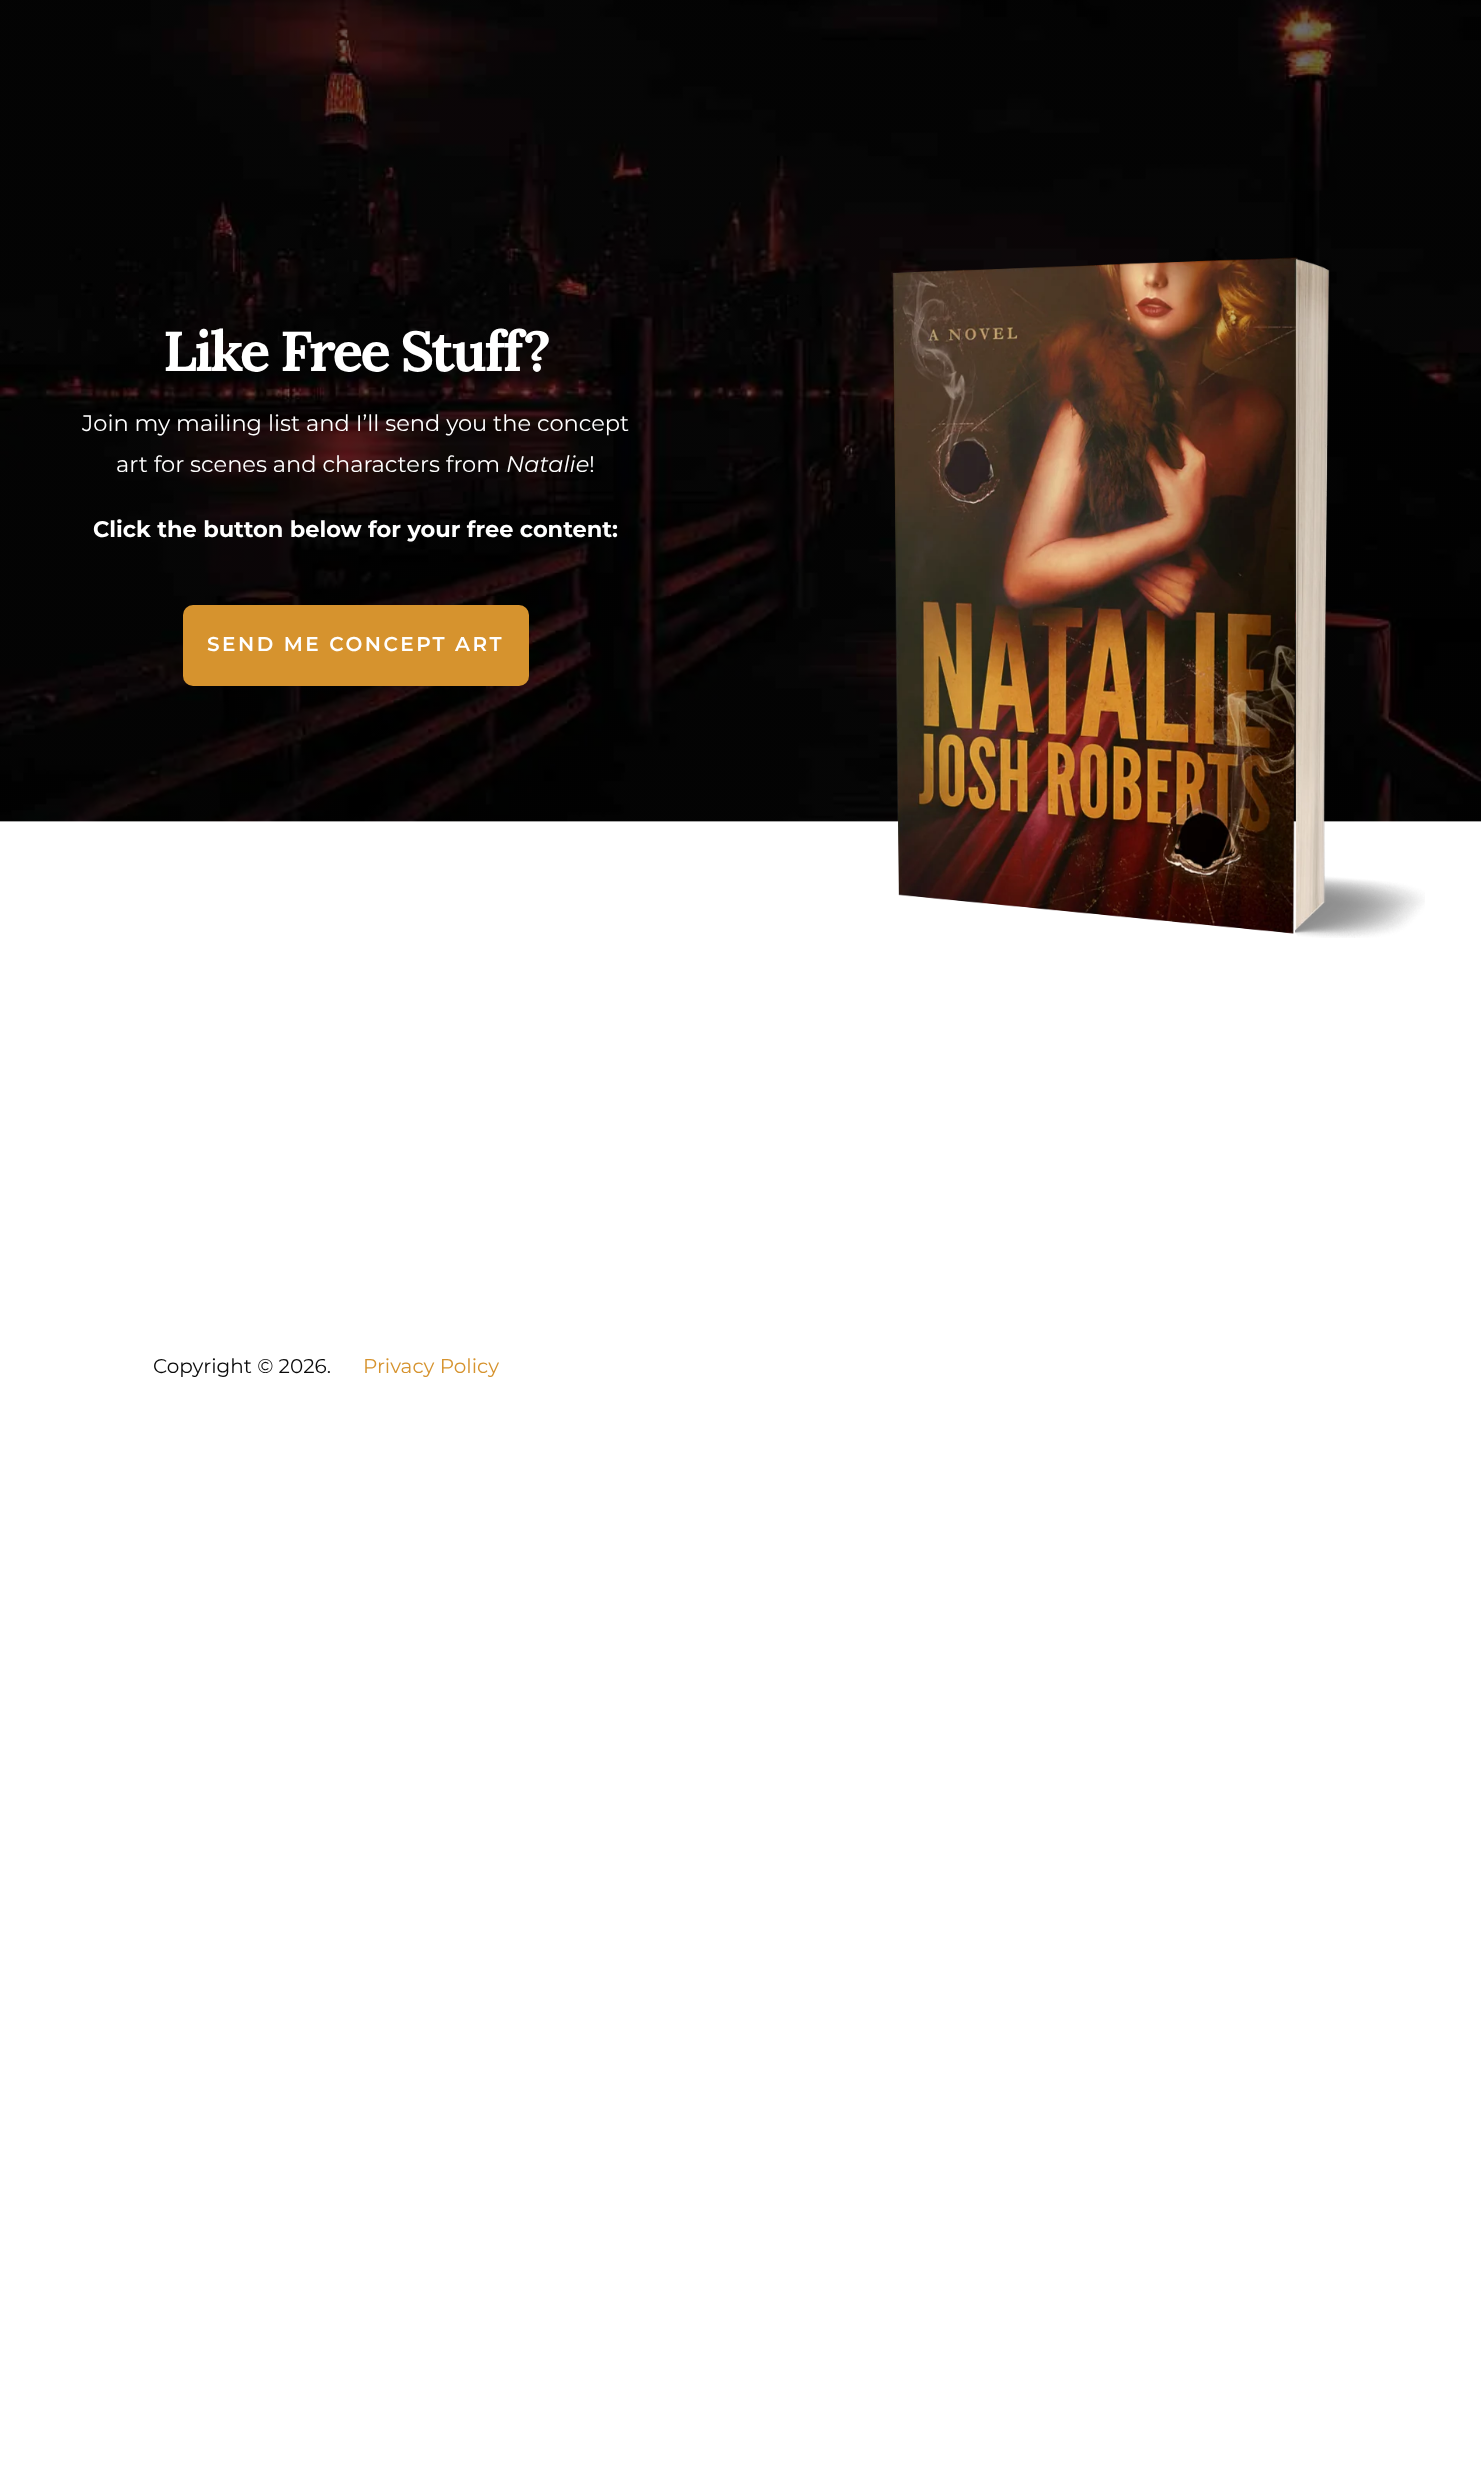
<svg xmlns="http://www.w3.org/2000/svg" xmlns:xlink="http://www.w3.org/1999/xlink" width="1481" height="2485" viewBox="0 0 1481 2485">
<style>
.cls-1{font:bold 56.25px Lora;letter-spacing:-2.5px;fill:#ffffff}
.cls-2{font:22.5px Montserrat;fill:#ffffff}
.cls-3{font:italic 22.5px Montserrat;fill:#ffffff}
.cls-4{font:bold 22.5px Montserrat;fill:#ffffff}
.cls-5{font:600 20px Montserrat;letter-spacing:2.5px;fill:#ffffff}
.cls-6{font:20px Montserrat;fill:#0a0a0a}
.cls-7{font:20px Montserrat;fill:#d6932e}
</style>
<rect width="100%" height="100%" fill="#ffffff"/>
<image xlink:href="image0.png" x="0" y="0" width="1481" height="822"/>
<rect fill="#d6932e" x="183" y="605" width="346" height="81" rx="10"/>
<image xlink:href="image1.png" x="892" y="257" width="533" height="681"/>
<text class="cls-1" x="163" y="371">Like Free Stuff?</text>
<text class="cls-2" x="82" y="431">Join my mailing list and I’ll send you the concept</text>
<text class="cls-2" x="116" y="472">art for scenes and characters from</text>
<text class="cls-3" x="506" y="472">Natalie</text>
<text class="cls-2" x="589" y="472">!</text>
<text class="cls-4" x="93" y="537">Click the button below for your free content:</text>
<text class="cls-5" x="207" y="651">SEND ME CONCEPT ART</text>
<text class="cls-6" x="153" y="1373">Copyright © 2026.</text>
<text class="cls-7" x="363" y="1373">Privacy Policy</text>
</svg>
